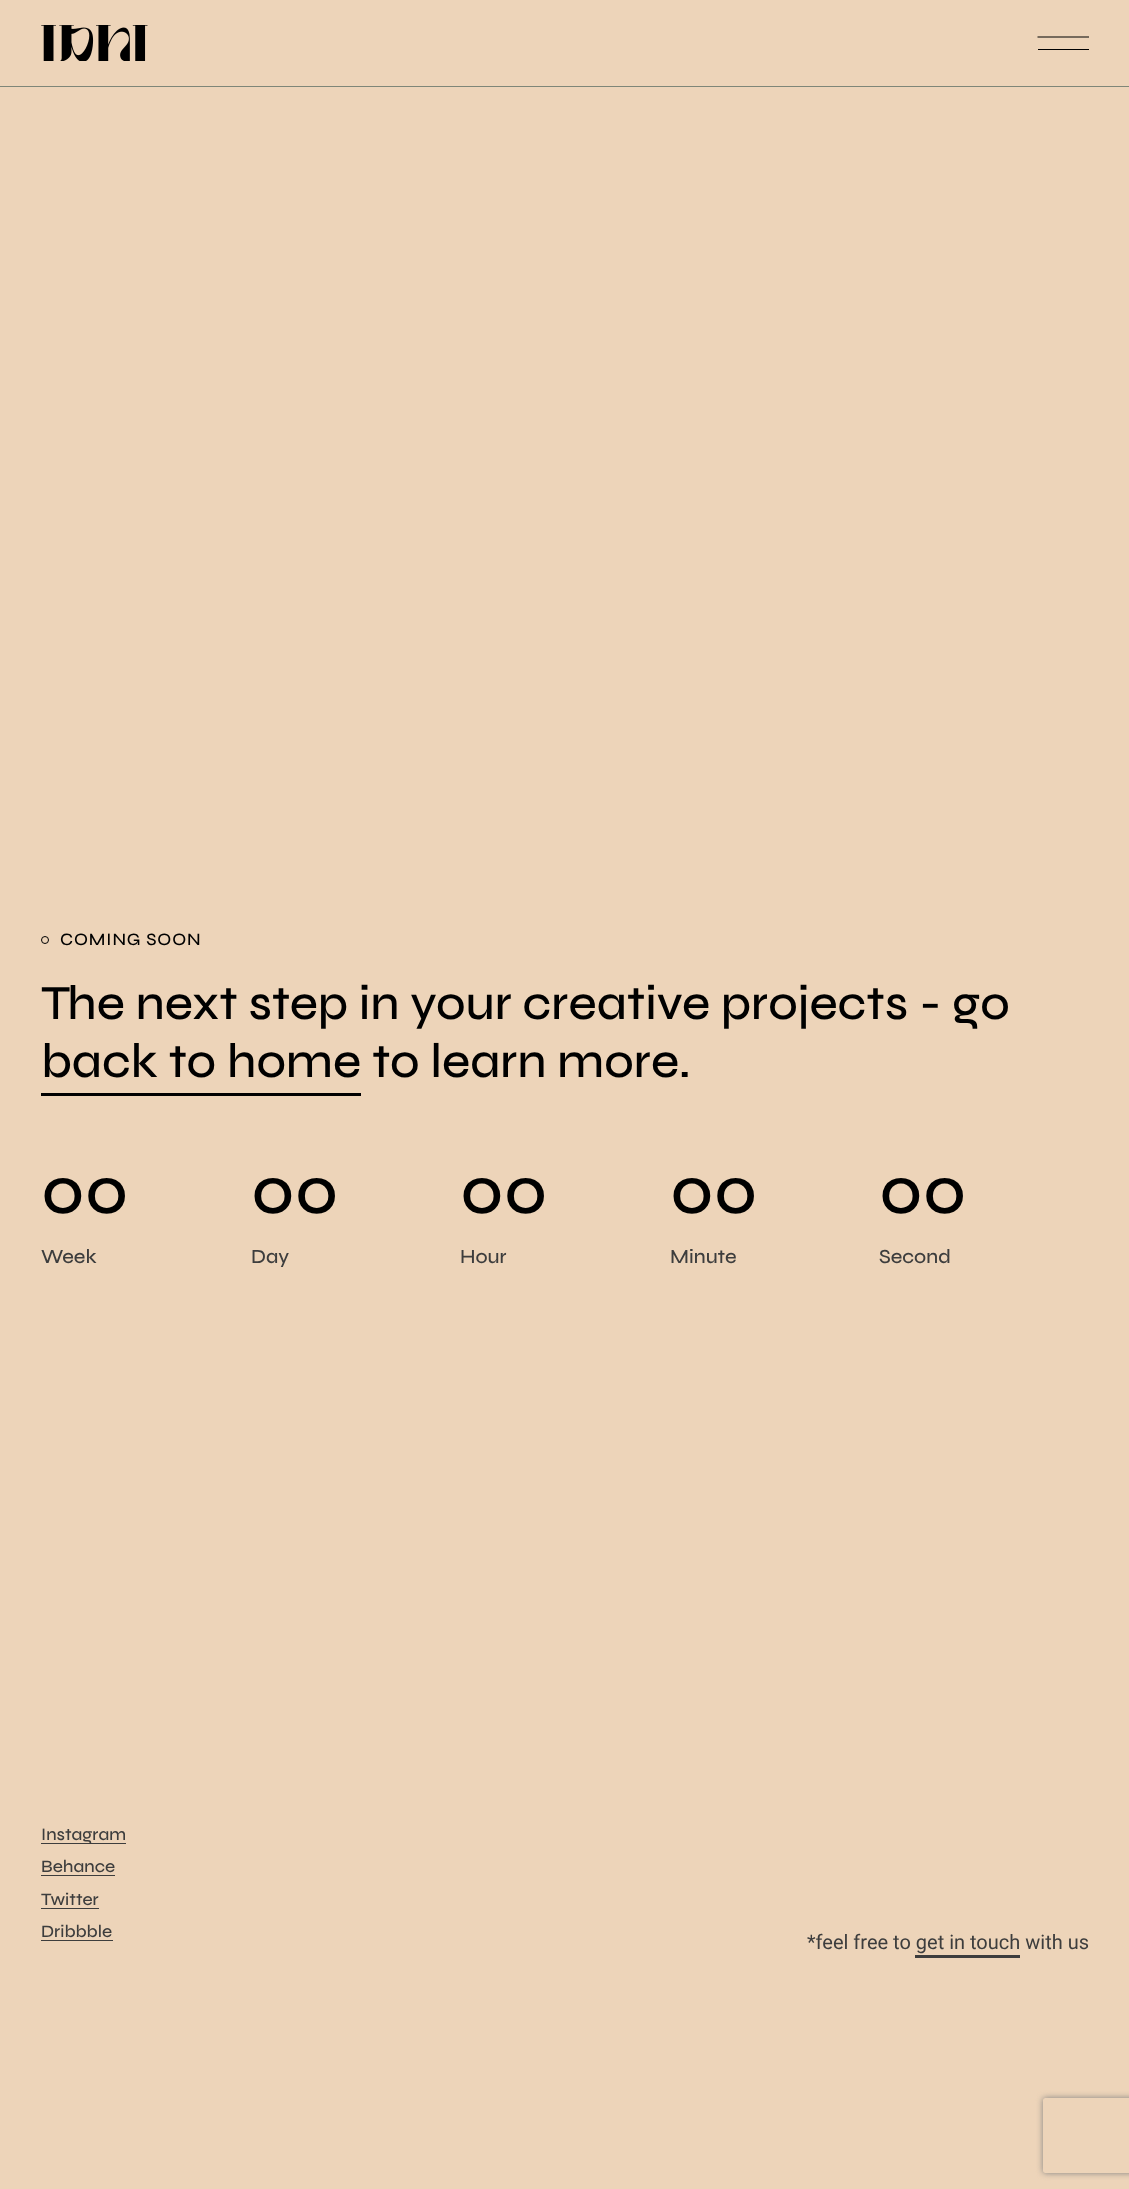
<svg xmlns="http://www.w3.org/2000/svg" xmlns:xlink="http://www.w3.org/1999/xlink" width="1129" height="2189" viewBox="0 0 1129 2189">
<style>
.cls-1{font:500 17.5px Syne;letter-spacing:0.9px;fill:#000000}
.cls-2{font:500 48.75px Syne;fill:#000000}
.cls-3{font:500 69px Syne;fill:#000000}
.cls-4{font:500 20px Syne;fill:#3d3d3d}
.cls-5{font:500 17.5px Syne;fill:#3d3d3d}
.cls-6{font:20px Roboto;fill:#3d3d3d}
</style>
<defs>
<clipPath id="clip1"><path d="M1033 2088H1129V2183H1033ZM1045.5 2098H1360.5C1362 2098 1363 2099 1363 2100.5V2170.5C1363 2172 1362 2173 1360.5 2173H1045.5C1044 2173 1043 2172 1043 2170.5V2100.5C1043 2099 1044 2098 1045.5 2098Z" clip-rule="evenodd"/></clipPath>
</defs>
<rect width="100%" height="100%" fill="#edd4b9"/>
<rect fill="#7f8678" x="0" y="86" width="1129" height="1"/>
<image xlink:href="image0.png" x="41" y="25" width="107" height="36"/>
<path fill="none" stroke="#000000" stroke-width="1.2" d="M1037.5 37H1089"/>
<rect fill="#000000" x="1038" y="49" width="51" height="1"/>
<circle fill="none" stroke="#000000" cx="45" cy="940" r="3.5"/>
<rect fill="#000000" x="41" y="1093" width="320" height="3"/>
<rect fill="#3d3d3d" x="41" y="1843" width="85" height="1"/>
<rect fill="#3d3d3d" x="41" y="1875" width="74" height="1"/>
<rect fill="#3d3d3d" x="41" y="1908" width="58" height="1"/>
<rect fill="#3d3d3d" x="41" y="1940" width="72" height="1"/>
<rect fill="#3d3d3d" x="915" y="1955" width="105" height="3"/>
<g clip-path="url(#clip1)">
<rect fill="#808080" filter="blur(3px)" x="1043" y="2098" width="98" height="75" rx="2.5"/>
</g>
<text class="cls-1" x="60" y="945">COMING SOON</text>
<text class="cls-2"><tspan x="41" y="1019">The next step in your creative projects - go</tspan><tspan x="41" y="1077">back to home to learn more.</tspan></text>
<text class="cls-3" x="41" y="1213">00</text>
<text class="cls-4" x="41" y="1263">Week</text>
<text class="cls-3" x="251" y="1213">00</text>
<text class="cls-4" x="251" y="1263">Day</text>
<text class="cls-3" x="460" y="1213">00</text>
<text class="cls-4" x="460" y="1263">Hour</text>
<text class="cls-3" x="670" y="1213">00</text>
<text class="cls-4" x="670" y="1263">Minute</text>
<text class="cls-3" x="879" y="1213">00</text>
<text class="cls-4" x="879" y="1263">Second</text>
<text class="cls-5"><tspan x="41" y="1840">Instagram</tspan><tspan x="41" y="1872">Behance</tspan><tspan x="41" y="1905">Twitter</tspan><tspan x="41" y="1937">Dribbble</tspan></text>
<text class="cls-6" x="807" y="1949">*feel free to get in touch with us</text>
</svg>
